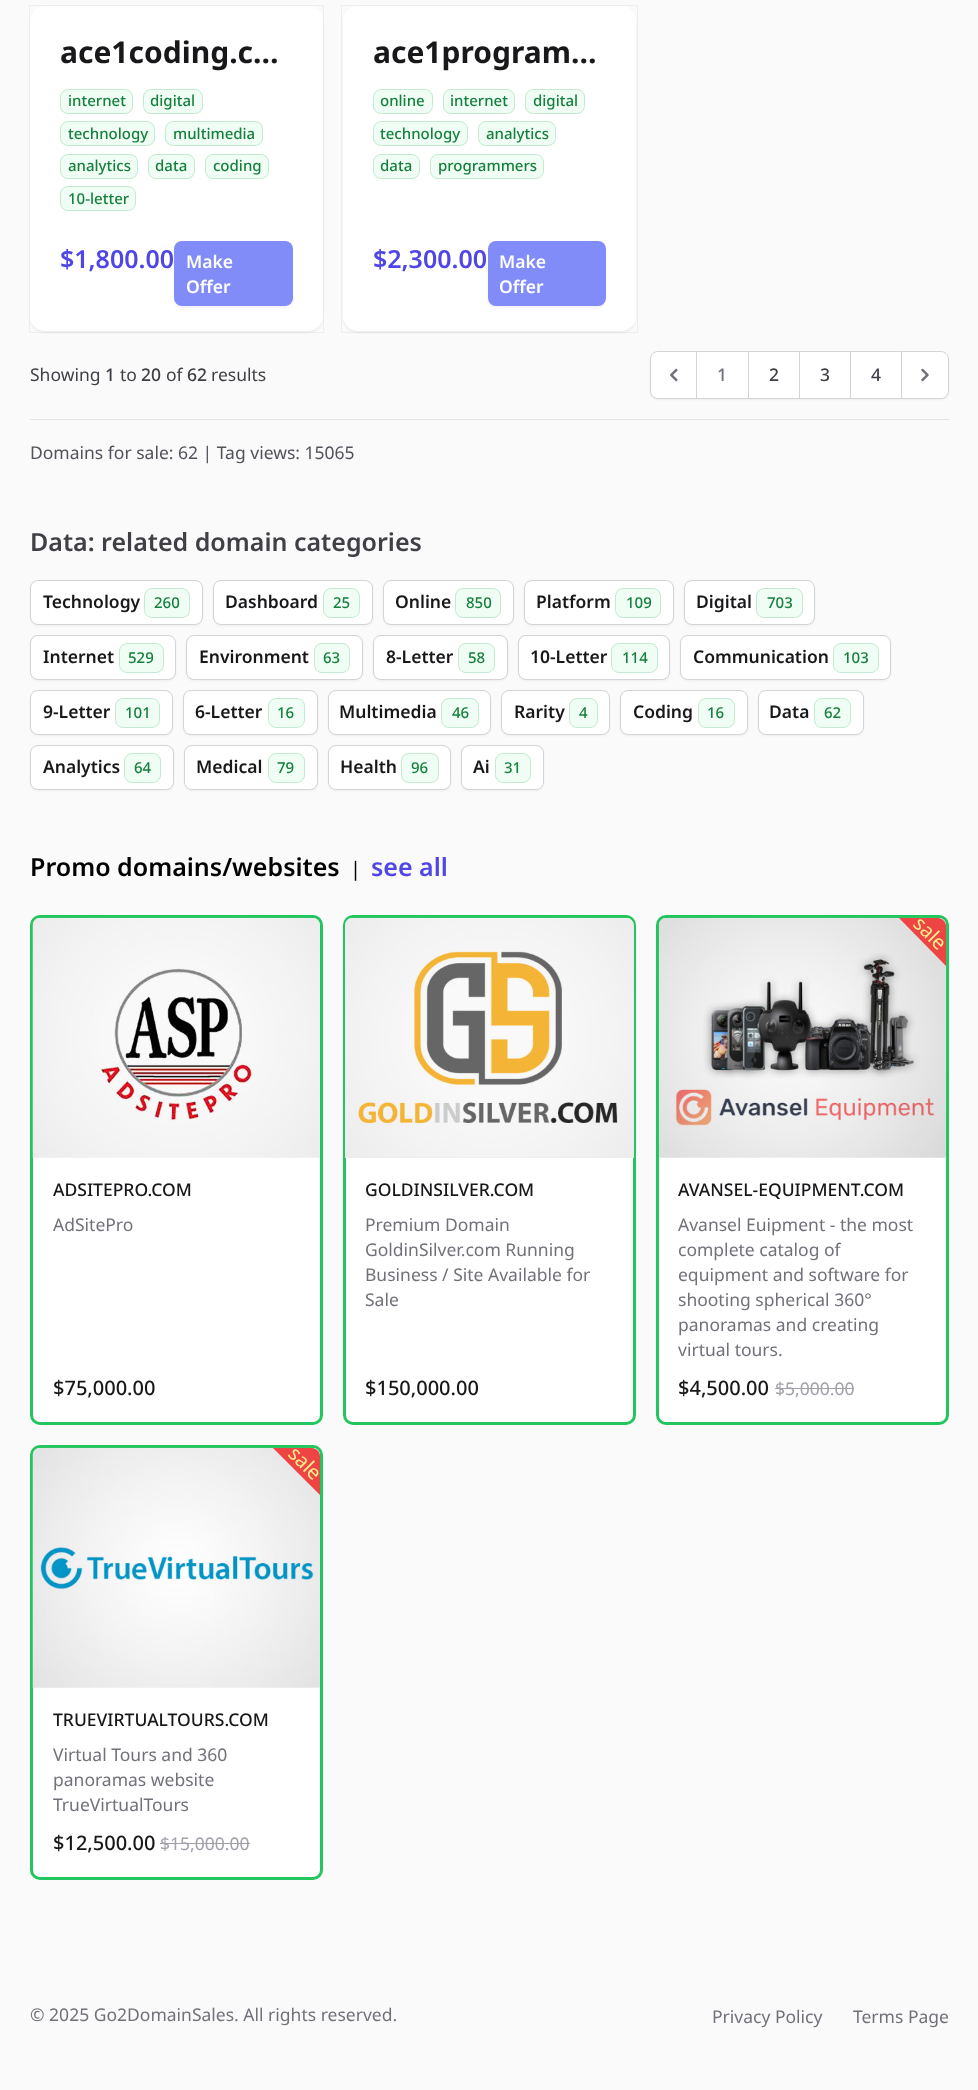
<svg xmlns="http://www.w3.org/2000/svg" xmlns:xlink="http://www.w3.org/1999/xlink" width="978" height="2090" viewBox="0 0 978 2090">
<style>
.cls-1{font:bold 30px Noto Sans;fill:#18181b}
.cls-2{font:500 15px Noto Sans;fill:#15803d}
.cls-3{font:600 25px Noto Sans;fill:#4f46e5}
.cls-4{font:600 17.5px Noto Sans;fill:#ffffff}
.cls-5{font:17.5px Noto Sans;fill:#3f3f46}
.cls-6{font:500 17.5px Noto Sans;fill:#3f3f46}
.cls-7{font:500 17.5px Noto Sans;fill:#71717a}
.cls-8{font:17.5px Noto Sans;fill:#52525b}
.cls-9{font:600 25px Noto Sans;fill:#3f3f46}
.cls-10{font:600 17.5px Noto Sans;fill:#18181b}
.cls-11{font:600 25px Noto Sans;fill:#000000}
.cls-12{font:20px Noto Sans;fill:#000000}
.cls-13{font:500 17.5px Noto Sans;fill:#18181b}
.cls-14{font:17.5px Noto Sans;fill:#71717a}
.cls-15{font:500 20px Noto Sans;fill:#18181b}
.cls-16{font:20px Noto Sans;fill:#fef08a}
.cls-17{font:17.5px Noto Sans;fill:#a1a1aa}
</style>
<rect width="100%" height="100%" fill="#fafafa"/>
<rect fill="#000000" fill-opacity="0.05" filter="blur(1px)" x="30" y="8" width="293" height="325" rx="15"/>
<rect fill="none" stroke="#18181b" stroke-opacity="0.05" x="29.5" y="5.5" width="294" height="327"/>
<rect fill="#ffffff" x="30" y="6" width="293" height="325" rx="15"/>
<rect fill="#f0fdf4" x="60" y="89" width="73" height="25" rx="8"/>
<rect fill="none" stroke="#16a34a" stroke-opacity="0.2" x="60.5" y="89.5" width="72" height="24" rx="7.5"/>
<rect fill="#f0fdf4" x="143" y="89" width="60" height="25" rx="8"/>
<rect fill="none" stroke="#16a34a" stroke-opacity="0.2" x="143.5" y="89.5" width="59" height="24" rx="7.5"/>
<rect fill="#f0fdf4" x="60" y="121" width="95" height="25" rx="8"/>
<rect fill="none" stroke="#16a34a" stroke-opacity="0.2" x="60.5" y="121.5" width="94" height="24" rx="7.5"/>
<rect fill="#f0fdf4" x="165" y="121" width="98" height="25" rx="8"/>
<rect fill="none" stroke="#16a34a" stroke-opacity="0.2" x="165.5" y="121.5" width="97" height="24" rx="7.5"/>
<rect fill="#f0fdf4" x="60" y="154" width="78" height="25" rx="8"/>
<rect fill="none" stroke="#16a34a" stroke-opacity="0.2" x="60.5" y="154.5" width="77" height="24" rx="7.5"/>
<rect fill="#f0fdf4" x="148" y="154" width="47" height="25" rx="8"/>
<rect fill="none" stroke="#16a34a" stroke-opacity="0.2" x="148.5" y="154.5" width="46" height="24" rx="7.5"/>
<rect fill="#f0fdf4" x="205" y="154" width="64" height="25" rx="8"/>
<rect fill="none" stroke="#16a34a" stroke-opacity="0.2" x="205.5" y="154.5" width="63" height="24" rx="7.5"/>
<rect fill="#f0fdf4" x="60" y="186" width="76" height="25" rx="8"/>
<rect fill="none" stroke="#16a34a" stroke-opacity="0.2" x="60.5" y="186.5" width="75" height="24" rx="7.5"/>
<rect fill="#000000" fill-opacity="0.05" filter="blur(1px)" x="174" y="243" width="119" height="65" rx="8"/>
<rect fill="#818cf8" x="174" y="241" width="119" height="65" rx="8"/>
<rect fill="#000000" fill-opacity="0.05" filter="blur(1px)" x="343" y="8" width="293" height="325" rx="15"/>
<rect fill="none" stroke="#18181b" stroke-opacity="0.05" x="341.5" y="5.5" width="296" height="327"/>
<rect fill="#ffffff" x="343" y="6" width="293" height="325" rx="15"/>
<rect fill="#f0fdf4" x="373" y="89" width="60" height="25" rx="8"/>
<rect fill="none" stroke="#16a34a" stroke-opacity="0.2" x="373.5" y="89.5" width="59" height="24" rx="7.5"/>
<rect fill="#f0fdf4" x="443" y="89" width="72" height="25" rx="8"/>
<rect fill="none" stroke="#16a34a" stroke-opacity="0.2" x="443.5" y="89.5" width="71" height="24" rx="7.5"/>
<rect fill="#f0fdf4" x="525" y="89" width="60" height="25" rx="8"/>
<rect fill="none" stroke="#16a34a" stroke-opacity="0.2" x="525.5" y="89.5" width="59" height="24" rx="7.5"/>
<rect fill="#f0fdf4" x="373" y="121" width="95" height="25" rx="8"/>
<rect fill="none" stroke="#16a34a" stroke-opacity="0.2" x="373.5" y="121.5" width="94" height="24" rx="7.5"/>
<rect fill="#f0fdf4" x="478" y="121" width="78" height="25" rx="8"/>
<rect fill="none" stroke="#16a34a" stroke-opacity="0.2" x="478.5" y="121.5" width="77" height="24" rx="7.5"/>
<rect fill="#f0fdf4" x="373" y="154" width="47" height="25" rx="8"/>
<rect fill="none" stroke="#16a34a" stroke-opacity="0.2" x="373.5" y="154.5" width="46" height="24" rx="7.5"/>
<rect fill="#f0fdf4" x="430" y="154" width="114" height="25" rx="8"/>
<rect fill="none" stroke="#16a34a" stroke-opacity="0.2" x="430.5" y="154.5" width="113" height="24" rx="7.5"/>
<rect fill="#000000" fill-opacity="0.05" filter="blur(1px)" x="488" y="243" width="118" height="65" rx="8"/>
<rect fill="#818cf8" x="488" y="241" width="118" height="65" rx="8"/>
<rect fill="#000000" fill-opacity="0.05" filter="blur(1px)" x="650" y="353" width="299" height="47" rx="8"/>
<path fill="#ffffff" stroke="#d4d4d8" d="M658 351.5H697.5V398.5H658C654 398.5 650.5 395 650.5 391V359C650.5 355 654 351.5 658 351.5Z"/>
<image xlink:href="image0.png" x="670" y="368" width="8" height="14"/>
<rect fill="#ffffff" stroke="#d4d4d8" x="696.5" y="351.5" width="52" height="47"/>
<rect fill="#ffffff" stroke="#d4d4d8" x="748.5" y="351.5" width="51" height="47"/>
<rect fill="#ffffff" stroke="#d4d4d8" x="799.5" y="351.5" width="51" height="47"/>
<rect fill="#ffffff" x="851" y="352" width="50" height="46"/>
<rect fill="none" stroke="#d4d4d8" x="850.5" y="351.5" width="52" height="47"/>
<path fill="#ffffff" stroke="#d4d4d8" d="M901.5 351.5H941C945 351.5 948.5 355 948.5 359V391C948.5 395 945 398.5 941 398.5H901.5Z"/>
<image xlink:href="image1.png" x="921" y="368" width="8" height="14"/>
<rect fill="#e4e4e7" x="30" y="419" width="919" height="1"/>
<rect fill="#000000" fill-opacity="0.05" filter="blur(1px)" x="30" y="581" width="173" height="45" rx="8"/>
<rect fill="#ffffff" stroke="#d4d4d8" x="30.5" y="580.5" width="172" height="44" rx="7.5"/>
<rect fill="#f0fdf4" x="144" y="588" width="46" height="30" rx="8"/>
<rect fill="none" stroke="#16a34a" stroke-opacity="0.2" x="144.5" y="588.5" width="45" height="29" rx="7.5"/>
<rect fill="#000000" fill-opacity="0.05" filter="blur(1px)" x="213" y="581" width="160" height="45" rx="8"/>
<rect fill="#ffffff" stroke="#d4d4d8" x="213.5" y="580.5" width="159" height="44" rx="7.5"/>
<rect fill="#f0fdf4" x="323" y="588" width="37" height="30" rx="8"/>
<rect fill="none" stroke="#16a34a" stroke-opacity="0.2" x="323.5" y="588.5" width="36" height="29" rx="7.5"/>
<rect fill="#000000" fill-opacity="0.05" filter="blur(1px)" x="383" y="581" width="131" height="45" rx="8"/>
<rect fill="#ffffff" stroke="#d4d4d8" x="383.5" y="580.5" width="130" height="44" rx="7.5"/>
<rect fill="#f0fdf4" x="455" y="588" width="46" height="30" rx="8"/>
<rect fill="none" stroke="#16a34a" stroke-opacity="0.2" x="455.5" y="588.5" width="45" height="29" rx="7.5"/>
<rect fill="#000000" fill-opacity="0.05" filter="blur(1px)" x="524" y="581" width="150" height="45" rx="8"/>
<rect fill="#ffffff" stroke="#d4d4d8" x="524.5" y="580.5" width="149" height="44" rx="7.5"/>
<rect fill="#f0fdf4" x="615" y="588" width="46" height="30" rx="8"/>
<rect fill="none" stroke="#16a34a" stroke-opacity="0.2" x="615.5" y="588.5" width="45" height="29" rx="7.5"/>
<rect fill="#000000" fill-opacity="0.05" filter="blur(1px)" x="684" y="581" width="131" height="45" rx="8"/>
<rect fill="#ffffff" stroke="#d4d4d8" x="684.5" y="580.5" width="130" height="44" rx="7.5"/>
<rect fill="#f0fdf4" x="756" y="588" width="47" height="30" rx="8"/>
<rect fill="none" stroke="#16a34a" stroke-opacity="0.2" x="756.5" y="588.5" width="46" height="29" rx="7.5"/>
<rect fill="#000000" fill-opacity="0.05" filter="blur(1px)" x="30" y="636" width="146" height="45" rx="8"/>
<rect fill="#ffffff" stroke="#d4d4d8" x="30.5" y="635.5" width="145" height="44" rx="7.5"/>
<rect fill="#f0fdf4" x="119" y="643" width="45" height="30" rx="8"/>
<rect fill="none" stroke="#16a34a" stroke-opacity="0.2" x="119.5" y="643.5" width="44" height="29" rx="7.5"/>
<rect fill="#000000" fill-opacity="0.05" filter="blur(1px)" x="186" y="636" width="177" height="45" rx="8"/>
<rect fill="#ffffff" stroke="#d4d4d8" x="186.5" y="635.5" width="176" height="44" rx="7.5"/>
<rect fill="#f0fdf4" x="314" y="643" width="36" height="30" rx="8"/>
<rect fill="none" stroke="#16a34a" stroke-opacity="0.2" x="314.5" y="643.5" width="35" height="29" rx="7.5"/>
<rect fill="#000000" fill-opacity="0.05" filter="blur(1px)" x="373" y="636" width="135" height="45" rx="8"/>
<rect fill="#ffffff" stroke="#d4d4d8" x="373.5" y="635.5" width="134" height="44" rx="7.5"/>
<rect fill="#f0fdf4" x="458" y="643" width="37" height="30" rx="8"/>
<rect fill="none" stroke="#16a34a" stroke-opacity="0.2" x="458.5" y="643.5" width="36" height="29" rx="7.5"/>
<rect fill="#000000" fill-opacity="0.05" filter="blur(1px)" x="518" y="636" width="152" height="45" rx="8"/>
<rect fill="#ffffff" stroke="#d4d4d8" x="518.5" y="635.5" width="151" height="44" rx="7.5"/>
<rect fill="#f0fdf4" x="611" y="643" width="47" height="30" rx="8"/>
<rect fill="none" stroke="#16a34a" stroke-opacity="0.2" x="611.5" y="643.5" width="46" height="29" rx="7.5"/>
<rect fill="#000000" fill-opacity="0.05" filter="blur(1px)" x="680" y="636" width="211" height="45" rx="8"/>
<rect fill="#ffffff" stroke="#d4d4d8" x="680.5" y="635.5" width="210" height="44" rx="7.5"/>
<rect fill="#f0fdf4" x="833" y="643" width="46" height="30" rx="8"/>
<rect fill="none" stroke="#16a34a" stroke-opacity="0.2" x="833.5" y="643.5" width="45" height="29" rx="7.5"/>
<rect fill="#000000" fill-opacity="0.05" filter="blur(1px)" x="30" y="691" width="143" height="45" rx="8"/>
<rect fill="#ffffff" stroke="#d4d4d8" x="30.5" y="690.5" width="142" height="44" rx="7.5"/>
<rect fill="#f0fdf4" x="115" y="698" width="45" height="30" rx="8"/>
<rect fill="none" stroke="#16a34a" stroke-opacity="0.2" x="115.5" y="698.5" width="44" height="29" rx="7.5"/>
<rect fill="#000000" fill-opacity="0.05" filter="blur(1px)" x="183" y="691" width="135" height="45" rx="8"/>
<rect fill="#ffffff" stroke="#d4d4d8" x="183.5" y="690.5" width="134" height="44" rx="7.5"/>
<rect fill="#f0fdf4" x="268" y="698" width="37" height="30" rx="8"/>
<rect fill="none" stroke="#16a34a" stroke-opacity="0.2" x="268.5" y="698.5" width="36" height="29" rx="7.5"/>
<rect fill="#000000" fill-opacity="0.05" filter="blur(1px)" x="328" y="691" width="163" height="45" rx="8"/>
<rect fill="#ffffff" stroke="#d4d4d8" x="328.5" y="690.5" width="162" height="44" rx="7.5"/>
<rect fill="#f0fdf4" x="441" y="698" width="38" height="30" rx="8"/>
<rect fill="none" stroke="#16a34a" stroke-opacity="0.2" x="441.5" y="698.5" width="37" height="29" rx="7.5"/>
<rect fill="#000000" fill-opacity="0.05" filter="blur(1px)" x="501" y="691" width="109" height="45" rx="8"/>
<rect fill="#ffffff" stroke="#d4d4d8" x="501.5" y="690.5" width="108" height="44" rx="7.5"/>
<rect fill="#f0fdf4" x="569" y="698" width="29" height="30" rx="8"/>
<rect fill="none" stroke="#16a34a" stroke-opacity="0.2" x="569.5" y="698.5" width="28" height="29" rx="7.5"/>
<rect fill="#000000" fill-opacity="0.05" filter="blur(1px)" x="620" y="691" width="128" height="45" rx="8"/>
<rect fill="#ffffff" stroke="#d4d4d8" x="620.5" y="690.5" width="127" height="44" rx="7.5"/>
<rect fill="#f0fdf4" x="698" y="698" width="37" height="30" rx="8"/>
<rect fill="none" stroke="#16a34a" stroke-opacity="0.2" x="698.5" y="698.5" width="36" height="29" rx="7.5"/>
<rect fill="#000000" fill-opacity="0.05" filter="blur(1px)" x="758" y="691" width="106" height="45" rx="8"/>
<rect fill="#ffffff" stroke="#d4d4d8" x="758.5" y="690.5" width="105" height="44" rx="7.5"/>
<rect fill="#f0fdf4" x="814" y="698" width="37" height="30" rx="8"/>
<rect fill="none" stroke="#16a34a" stroke-opacity="0.2" x="814.5" y="698.5" width="36" height="29" rx="7.5"/>
<rect fill="#000000" fill-opacity="0.05" filter="blur(1px)" x="30" y="746" width="144" height="45" rx="8"/>
<rect fill="#ffffff" stroke="#d4d4d8" x="30.5" y="745.5" width="143" height="44" rx="7.5"/>
<rect fill="#f0fdf4" x="124" y="753" width="37" height="30" rx="8"/>
<rect fill="none" stroke="#16a34a" stroke-opacity="0.2" x="124.5" y="753.5" width="36" height="29" rx="7.5"/>
<rect fill="#000000" fill-opacity="0.05" filter="blur(1px)" x="184" y="746" width="134" height="45" rx="8"/>
<rect fill="#ffffff" stroke="#d4d4d8" x="184.5" y="745.5" width="133" height="44" rx="7.5"/>
<rect fill="#f0fdf4" x="268" y="753" width="37" height="30" rx="8"/>
<rect fill="none" stroke="#16a34a" stroke-opacity="0.2" x="268.5" y="753.5" width="36" height="29" rx="7.5"/>
<rect fill="#000000" fill-opacity="0.05" filter="blur(1px)" x="328" y="746" width="123" height="45" rx="8"/>
<rect fill="#ffffff" stroke="#d4d4d8" x="328.5" y="745.5" width="122" height="44" rx="7.5"/>
<rect fill="#f0fdf4" x="401" y="753" width="38" height="30" rx="8"/>
<rect fill="none" stroke="#16a34a" stroke-opacity="0.2" x="401.5" y="753.5" width="37" height="29" rx="7.5"/>
<rect fill="#000000" fill-opacity="0.05" filter="blur(1px)" x="461" y="746" width="83" height="45" rx="8"/>
<rect fill="#ffffff" stroke="#d4d4d8" x="461.5" y="745.5" width="82" height="44" rx="7.5"/>
<rect fill="#f0fdf4" x="495" y="753" width="36" height="30" rx="8"/>
<rect fill="none" stroke="#16a34a" stroke-opacity="0.2" x="495.5" y="753.5" width="35" height="29" rx="7.5"/>
<rect fill="#ffffff" stroke="#22c55e" stroke-width="3" x="31.5" y="916.5" width="290" height="507" rx="8.5"/>
<image xlink:href="image2.png" x="32" y="917" width="288" height="241"/>
<rect fill="#ffffff" stroke="#22c55e" stroke-width="3" x="344.5" y="916.5" width="290" height="507" rx="8.5"/>
<path fill="#e4e4e7" d="M353 918H626C630.5 918 634 921.5 634 926V1158H345V926C345 921.5 348.5 918 353 918Z"/>
<image xlink:href="image3.png" x="345" y="917" width="289" height="241"/>
<rect fill="#ffffff" stroke="#22c55e" stroke-width="3" x="657.5" y="916.5" width="290" height="507" rx="8.5"/>
<image xlink:href="image4.png" x="658" y="917" width="289" height="241"/>
<path fill="#ef4444" d="M946 966L899 918H938C942 918 946 922 946 926Z"/>
<rect fill="#a1a1aa" x="775" y="1388" width="79" height="1"/>
<rect fill="#ffffff" stroke="#22c55e" stroke-width="3" x="31.5" y="1446.5" width="290" height="432" rx="8.5"/>
<image xlink:href="image5.png" x="32" y="1447" width="288" height="241"/>
<path fill="#ef4444" d="M320 1495L273 1448H312C316 1448 320 1452 320 1456Z"/>
<rect fill="#a1a1aa" x="160" y="1843" width="90" height="1"/>
<text class="cls-1" x="60" y="63">ace1coding.c…</text>
<text class="cls-2" x="68" y="106">internet</text>
<text class="cls-2" x="150" y="106">digital</text>
<text class="cls-2" x="68" y="139">technology</text>
<text class="cls-2" x="173" y="139">multimedia</text>
<text class="cls-2" x="68" y="171">analytics</text>
<text class="cls-2" x="155" y="171">data</text>
<text class="cls-2" x="213" y="171">coding</text>
<text class="cls-2" x="68" y="204">10-letter</text>
<text class="cls-3" x="60" y="268">$1,800.00</text>
<text class="cls-4"><tspan x="186" y="268">Make</tspan><tspan x="186" y="293">Offer</tspan></text>
<text class="cls-1" x="373" y="63">ace1program…</text>
<text class="cls-2" x="380" y="106">online</text>
<text class="cls-2" x="450" y="106">internet</text>
<text class="cls-2" x="533" y="106">digital</text>
<text class="cls-2" x="380" y="139">technology</text>
<text class="cls-2" x="486" y="139">analytics</text>
<text class="cls-2" x="380" y="171">data</text>
<text class="cls-2" x="438" y="171">programmers</text>
<text class="cls-3" x="373" y="268">$2,300.00</text>
<text class="cls-4"><tspan x="499" y="268">Make</tspan><tspan x="499" y="293">Offer</tspan></text>
<text class="cls-5" x="30" y="381">Showing</text>
<text class="cls-6" x="105" y="381">1</text>
<text class="cls-5" x="120" y="381">to</text>
<text class="cls-6" x="141" y="381">20</text>
<text class="cls-5" x="166" y="381">of</text>
<text class="cls-6" x="187" y="381">62</text>
<text class="cls-5" x="211" y="381">results</text>
<text class="cls-7" x="717" y="381">1</text>
<text class="cls-6" x="769" y="381">2</text>
<text class="cls-6" x="820" y="381">3</text>
<text class="cls-6" x="871" y="381">4</text>
<text class="cls-8" x="30" y="459">Domains for sale: 62 | Tag views: 15065</text>
<text class="cls-9" x="30" y="551">Data: related domain categories</text>
<text class="cls-10" x="43" y="608">Technology</text>
<text class="cls-2" x="154" y="608">260</text>
<text class="cls-10" x="225" y="608">Dashboard</text>
<text class="cls-2" x="333" y="608">25</text>
<text class="cls-10" x="395" y="608">Online</text>
<text class="cls-2" x="466" y="608">850</text>
<text class="cls-10" x="536" y="608">Platform</text>
<text class="cls-2" x="626" y="608">109</text>
<text class="cls-10" x="696" y="608">Digital</text>
<text class="cls-2" x="767" y="608">703</text>
<text class="cls-10" x="43" y="663">Internet</text>
<text class="cls-2" x="128" y="663">529</text>
<text class="cls-10" x="199" y="663">Environment</text>
<text class="cls-2" x="323" y="663">63</text>
<text class="cls-10" x="386" y="663">8-Letter</text>
<text class="cls-2" x="468" y="663">58</text>
<text class="cls-10" x="530" y="663">10-Letter</text>
<text class="cls-2" x="622" y="663">114</text>
<text class="cls-10" x="693" y="663">Communication</text>
<text class="cls-2" x="843" y="663">103</text>
<text class="cls-10" x="43" y="718">9-Letter</text>
<text class="cls-2" x="125" y="718">101</text>
<text class="cls-10" x="195" y="718">6-Letter</text>
<text class="cls-2" x="277" y="718">16</text>
<text class="cls-10" x="339" y="718">Multimedia</text>
<text class="cls-2" x="452" y="718">46</text>
<text class="cls-10" x="514" y="718">Rarity</text>
<text class="cls-2" x="579" y="718">4</text>
<text class="cls-10" x="633" y="718">Coding</text>
<text class="cls-2" x="707" y="718">16</text>
<text class="cls-10" x="769" y="718">Data</text>
<text class="cls-2" x="824" y="718">62</text>
<text class="cls-10" x="43" y="773">Analytics</text>
<text class="cls-2" x="134" y="773">64</text>
<text class="cls-10" x="196" y="773">Medical</text>
<text class="cls-2" x="277" y="773">79</text>
<text class="cls-10" x="340" y="773">Health</text>
<text class="cls-2" x="411" y="773">96</text>
<text class="cls-10" x="473" y="773">Ai</text>
<text class="cls-2" x="504" y="773">31</text>
<text class="cls-11" x="30" y="876">Promo domains/websites</text>
<text class="cls-12" x="350" y="876">|</text>
<text class="cls-3" x="371" y="876">see all</text>
<text class="cls-13" x="53" y="1196">ADSITEPRO.COM</text>
<text class="cls-14" x="53" y="1231">AdSitePro</text>
<text class="cls-15" x="53" y="1395">$75,000.00</text>
<text class="cls-13" x="365" y="1196">GOLDINSILVER.COM</text>
<text class="cls-14"><tspan x="365" y="1231">Premium Domain</tspan><tspan x="365" y="1256">GoldinSilver.com Running</tspan><tspan x="365" y="1281">Business / Site Available for</tspan><tspan x="365" y="1306">Sale</tspan></text>
<text class="cls-15" x="365" y="1395">$150,000.00</text>
<text class="cls-16" x="912" y="925" transform="rotate(45 912 925)">sale</text>
<text class="cls-13" x="678" y="1196">AVANSEL-EQUIPMENT.COM</text>
<text class="cls-14"><tspan x="678" y="1231">Avansel Euipment - the most</tspan><tspan x="678" y="1256">complete catalog of</tspan><tspan x="678" y="1281">equipment and software for</tspan><tspan x="678" y="1306">shooting spherical 360°</tspan><tspan x="678" y="1331">panoramas and creating</tspan><tspan x="678" y="1356">virtual tours.</tspan></text>
<text class="cls-15" x="678" y="1395">$4,500.00</text>
<text class="cls-17" x="775" y="1395">$5,000.00</text>
<text class="cls-16" x="287" y="1455" transform="rotate(45 287 1455)">sale</text>
<text class="cls-13" x="53" y="1726">TRUEVIRTUALTOURS.COM</text>
<text class="cls-14"><tspan x="53" y="1761">Virtual Tours and 360</tspan><tspan x="53" y="1786">panoramas website</tspan><tspan x="53" y="1811">TrueVirtualTours</tspan></text>
<text class="cls-15" x="53" y="1850">$12,500.00</text>
<text class="cls-17" x="160" y="1850">$15,000.00</text>
<text class="cls-14" x="30" y="2021">© 2025 Go2DomainSales. All rights reserved.</text>
<text class="cls-14" x="712" y="2023">Privacy Policy</text>
<text class="cls-14" x="853" y="2023">Terms Page</text>
</svg>
